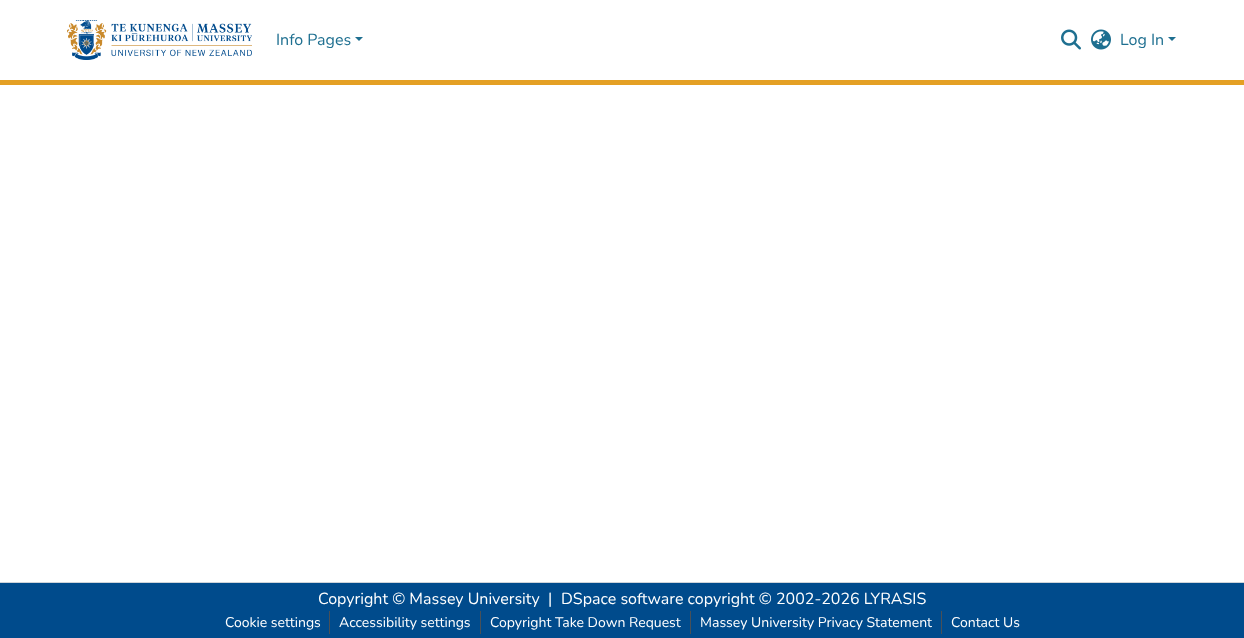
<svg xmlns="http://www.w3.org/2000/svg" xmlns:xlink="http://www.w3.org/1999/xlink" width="1244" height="638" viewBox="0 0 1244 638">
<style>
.cls-1{font:16px Nunito;fill:#1e6f90}
.cls-2{font:16px Nunito;fill:#ffffff}
.cls-3{font:14px Nunito;fill:#ffffff}
</style>
<rect width="100%" height="100%" fill="#ffffff"/>
<rect fill="#e4a024" x="0" y="80" width="1244" height="5"/>
<image xlink:href="image0.png" x="67" y="20" width="185" height="40"/>
<path fill="#1e6f90" d="M355 37H363L359 41Z"/>
<image xlink:href="image1.png" x="1061" y="29" width="20" height="21"/>
<image xlink:href="image2.png" x="1091" y="29" width="20" height="21"/>
<path fill="#1e6f90" d="M1168 37H1176L1172 41Z"/>
<rect fill="#004b8c" x="0" y="583" width="1244" height="55"/>
<rect fill="#ced4da" x="0" y="582" width="1244" height="1"/>
<rect fill="#495057" x="329" y="611" width="1" height="23"/>
<rect fill="#495057" x="480" y="611" width="1" height="23"/>
<rect fill="#495057" x="690" y="611" width="1" height="23"/>
<rect fill="#495057" x="941" y="611" width="1" height="23"/>
<text class="cls-1" x="276" y="45">Info Pages</text>
<text class="cls-1" x="1120" y="45">Log In</text>
<text class="cls-2" x="318" y="604">Copyright © Massey University</text>
<text class="cls-2" x="548" y="604">|</text>
<text class="cls-2" x="561" y="604">DSpace software copyright © 2002-2026 LYRASIS</text>
<text class="cls-3" x="225" y="627">Cookie settings</text>
<text class="cls-3" x="339" y="627">Accessibility settings</text>
<text class="cls-3" x="490" y="627">Copyright Take Down Request</text>
<text class="cls-3" x="700" y="627">Massey University Privacy Statement</text>
<text class="cls-3" x="951" y="627">Contact Us</text>
</svg>
